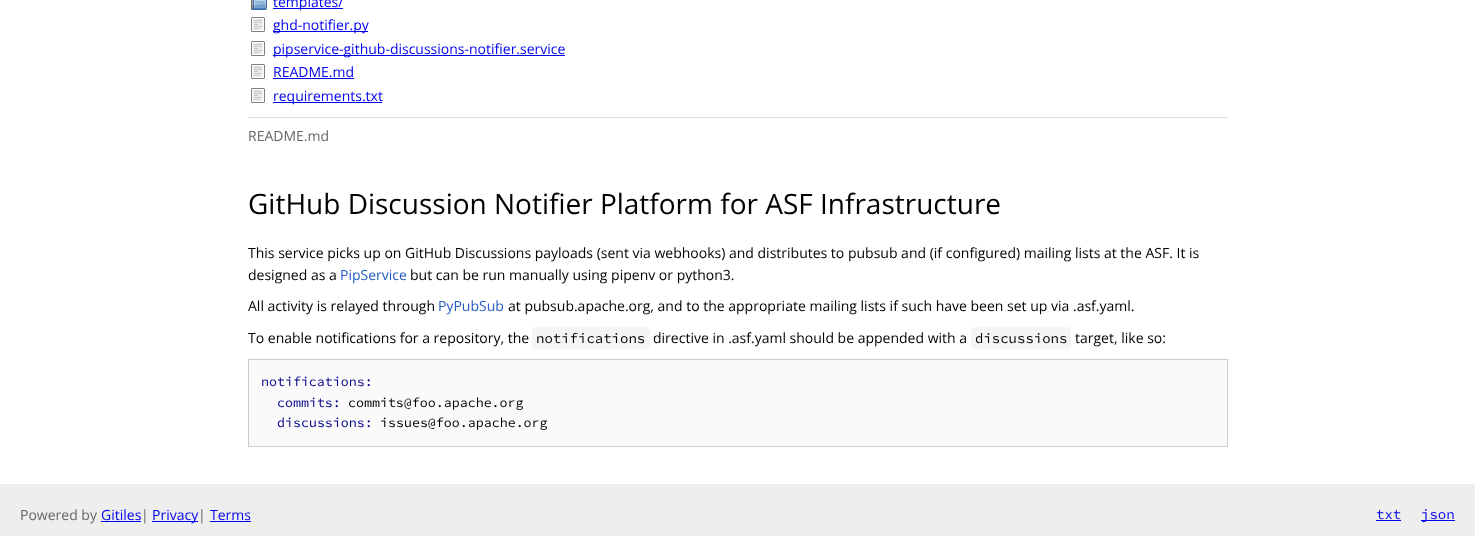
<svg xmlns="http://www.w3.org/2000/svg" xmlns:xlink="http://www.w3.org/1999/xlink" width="1475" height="536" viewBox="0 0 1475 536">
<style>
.cls-1{font:14px Open Sans;fill:#0000ee}
.cls-2{font:14px Open Sans;fill:#666666}
.cls-3{font:28px Open Sans;fill:#000000}
.cls-4{font:14px Open Sans;fill:#000000}
.cls-5{font:14px Open Sans;fill:#245dc1}
.cls-6{font:200 14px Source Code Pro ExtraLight;fill:#000000}
.cls-7{font:200 13.3px Source Code Pro ExtraLight;fill:#000088}
.cls-8{font:200 13.3px Source Code Pro ExtraLight;fill:#000000}
.cls-9{font:200 14px Source Code Pro ExtraLight;fill:#0000ee}
</style>
<rect width="100%" height="100%" fill="#ffffff"/>
<image xlink:href="image0.png" x="251" y="0" width="16" height="10"/>
<rect fill="#0000ee" x="273" y="8" width="70" height="1"/>
<image xlink:href="image1.png" x="251" y="17" width="14" height="15"/>
<rect fill="#0000ee" x="273" y="31" width="95" height="1"/>
<image xlink:href="image1.png" x="251" y="41" width="14" height="15"/>
<rect fill="#0000ee" x="273" y="55" width="292" height="1"/>
<image xlink:href="image1.png" x="251" y="64" width="14" height="15"/>
<rect fill="#0000ee" x="273" y="78" width="81" height="1"/>
<image xlink:href="image1.png" x="251" y="88" width="14" height="15"/>
<rect fill="#0000ee" x="273" y="102" width="109" height="1"/>
<rect fill="#dddddd" x="248" y="117" width="980" height="1"/>
<rect fill="#f5f5f5" x="532" y="327" width="118" height="22" rx="4"/>
<rect fill="#f5f5f5" x="971" y="327" width="100" height="22" rx="4"/>
<rect fill="#fafafa" stroke="#cccccc" x="248.5" y="359.5" width="979" height="87"/>
<rect fill="#eeeeee" x="0" y="484" width="1475" height="52"/>
<rect fill="#0000ee" x="101" y="521" width="40" height="1"/>
<rect fill="#0000ee" x="152" y="521" width="46" height="1"/>
<rect fill="#0000ee" x="210" y="521" width="41" height="1"/>
<rect fill="#0000ee" x="1376" y="520" width="25" height="1"/>
<rect fill="#0000ee" x="1421" y="520" width="34" height="1"/>
<text class="cls-1"><tspan x="273" y="7">templates/</tspan><tspan x="273" y="30">ghd-notifier.py</tspan><tspan x="273" y="54">pipservice-github-discussions-notifier.service</tspan><tspan x="273" y="77">README.md</tspan><tspan x="273" y="101">requirements.txt</tspan></text>
<text class="cls-2" x="248" y="141">README.md</text>
<text class="cls-3" x="248" y="214">GitHub Discussion Notifier Platform for ASF Infrastructure</text>
<text class="cls-4"><tspan x="248" y="258">This service picks up on GitHub Discussions payloads (sent via webhooks) and distributes to pubsub and (if configured) mailing lists at the ASF. It is</tspan><tspan x="248" y="280">designed as a</tspan></text>
<text class="cls-5" x="340" y="280">PipService</text>
<text class="cls-4" x="410" y="280">but can be run manually using pipenv or python3.</text>
<text class="cls-4" x="248" y="311">All activity is relayed through</text>
<text class="cls-5" x="438" y="311">PyPubSub</text>
<text class="cls-4" x="508" y="311">at pubsub.apache.org, and to the appropriate mailing lists if such have been set up via .asf.yaml.</text>
<text class="cls-4" x="248" y="343">To enable notifications for a repository, the</text>
<text class="cls-6" x="536" y="343">notifications</text>
<text class="cls-4" x="653" y="343">directive in .asf.yaml should be appended with a</text>
<text class="cls-6" x="975" y="343">discussions</text>
<text class="cls-4" x="1075" y="343">target, like so:</text>
<text class="cls-7" x="261" y="386">notifications:</text>
<text class="cls-7" x="277" y="407">commits:</text>
<text class="cls-8" x="348" y="407">commits@foo.apache.org</text>
<text class="cls-7" x="277" y="427">discussions:</text>
<text class="cls-8" x="380" y="427">issues@foo.apache.org</text>
<text class="cls-2" x="20" y="520">Powered by</text>
<text class="cls-1" x="101" y="520">Gitiles</text>
<text class="cls-2" x="141" y="520">|</text>
<text class="cls-1" x="152" y="520">Privacy</text>
<text class="cls-2" x="198" y="520">|</text>
<text class="cls-1" x="210" y="520">Terms</text>
<text class="cls-9" x="1376" y="519">txt</text>
<text class="cls-9" x="1421" y="519">json</text>
</svg>
